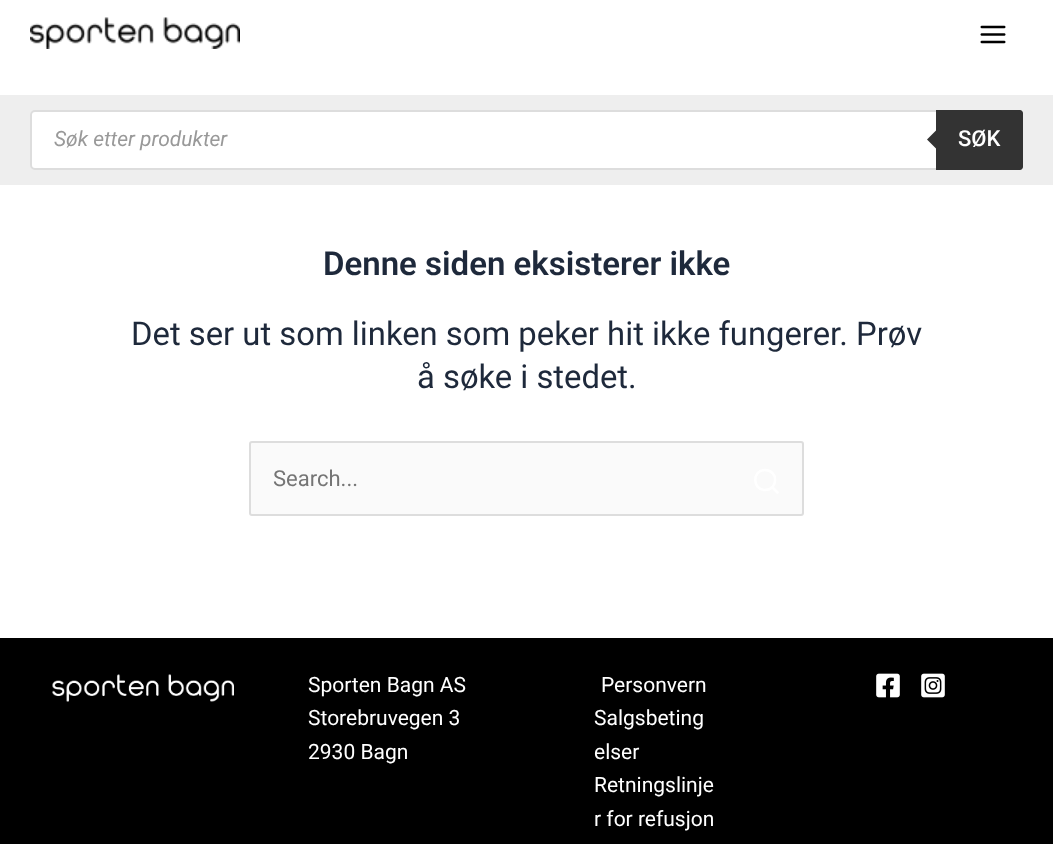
<svg xmlns="http://www.w3.org/2000/svg" xmlns:xlink="http://www.w3.org/1999/xlink" width="1053" height="844" viewBox="0 0 1053 844">
<style>
.cls-1{font:italic 21px Roboto;fill:#999999}
.cls-2{font:500 22px Roboto;fill:#ffffff}
.cls-3{font:600 33px Roboto;fill:#1e293b}
.cls-4{font:32.8px Roboto;fill:#1e293b}
.cls-5{font:22px Roboto;fill:#757575}
.cls-6{font:21px Roboto;fill:#ffffff}
</style>
<rect width="100%" height="100%" fill="#ffffff"/>
<image xlink:href="image0.png" x="30" y="17" width="210" height="32"/>
<image xlink:href="image1.png" x="980" y="25" width="26" height="19"/>
<rect fill="#eeeeee" x="0" y="95" width="1053" height="90"/>
<rect fill="#ffffff" stroke="#dddddd" stroke-width="2" x="31" y="111" width="991" height="58" rx="4"/>
<path fill="#333333" d="M936 110H1020C1021.5 110 1023 111.5 1023 113V167C1023 168.5 1021.5 170 1020 170H936Z"/>
<path fill="#333333" d="M939 127.5V151.5L927 139.5Z"/>
<rect fill="#fafafa" stroke="#dddddd" stroke-width="2" x="250" y="442" width="553" height="73" rx="2"/>
<path fill="none" stroke="#ffffff" stroke-width="2.5" stroke-linecap="round" stroke-linejoin="round" d="M765 490C778.5 490 778.5 470 765 470C752 470 752 490 765 490ZM777.5 492.5L772.5 487.5"/>
<rect fill="#000000" x="0" y="638" width="1053" height="206"/>
<image xlink:href="image2.png" x="52" y="674" width="182" height="28"/>
<image xlink:href="image3.png" x="876" y="673" width="24" height="25"/>
<image xlink:href="image4.png" x="921" y="673" width="24" height="25"/>
<text class="cls-1" x="54" y="146">Søk etter produkter</text>
<text class="cls-2" x="958" y="146">SØK</text>
<text class="cls-3" x="323" y="275">Denne siden eksisterer ikke</text>
<text class="cls-4" x="131" y="345">Det ser ut som linken som peker hit ikke fungerer. Prøv</text>
<text class="cls-4" x="417" y="388">å søke i stedet.</text>
<text class="cls-5" x="273" y="486">Search...</text>
<text class="cls-6"><tspan x="308" y="692">Sporten Bagn AS</tspan><tspan x="308" y="725">Storebruvegen 3</tspan><tspan x="308" y="759">2930 Bagn</tspan></text>
<text class="cls-6" x="601" y="692">Personvern</text>
<text class="cls-6"><tspan x="594" y="725">Salgsbeting</tspan><tspan x="594" y="759">elser</tspan><tspan x="594" y="792">Retningslinje</tspan><tspan x="594" y="826">r for refusjon</tspan></text>
</svg>
